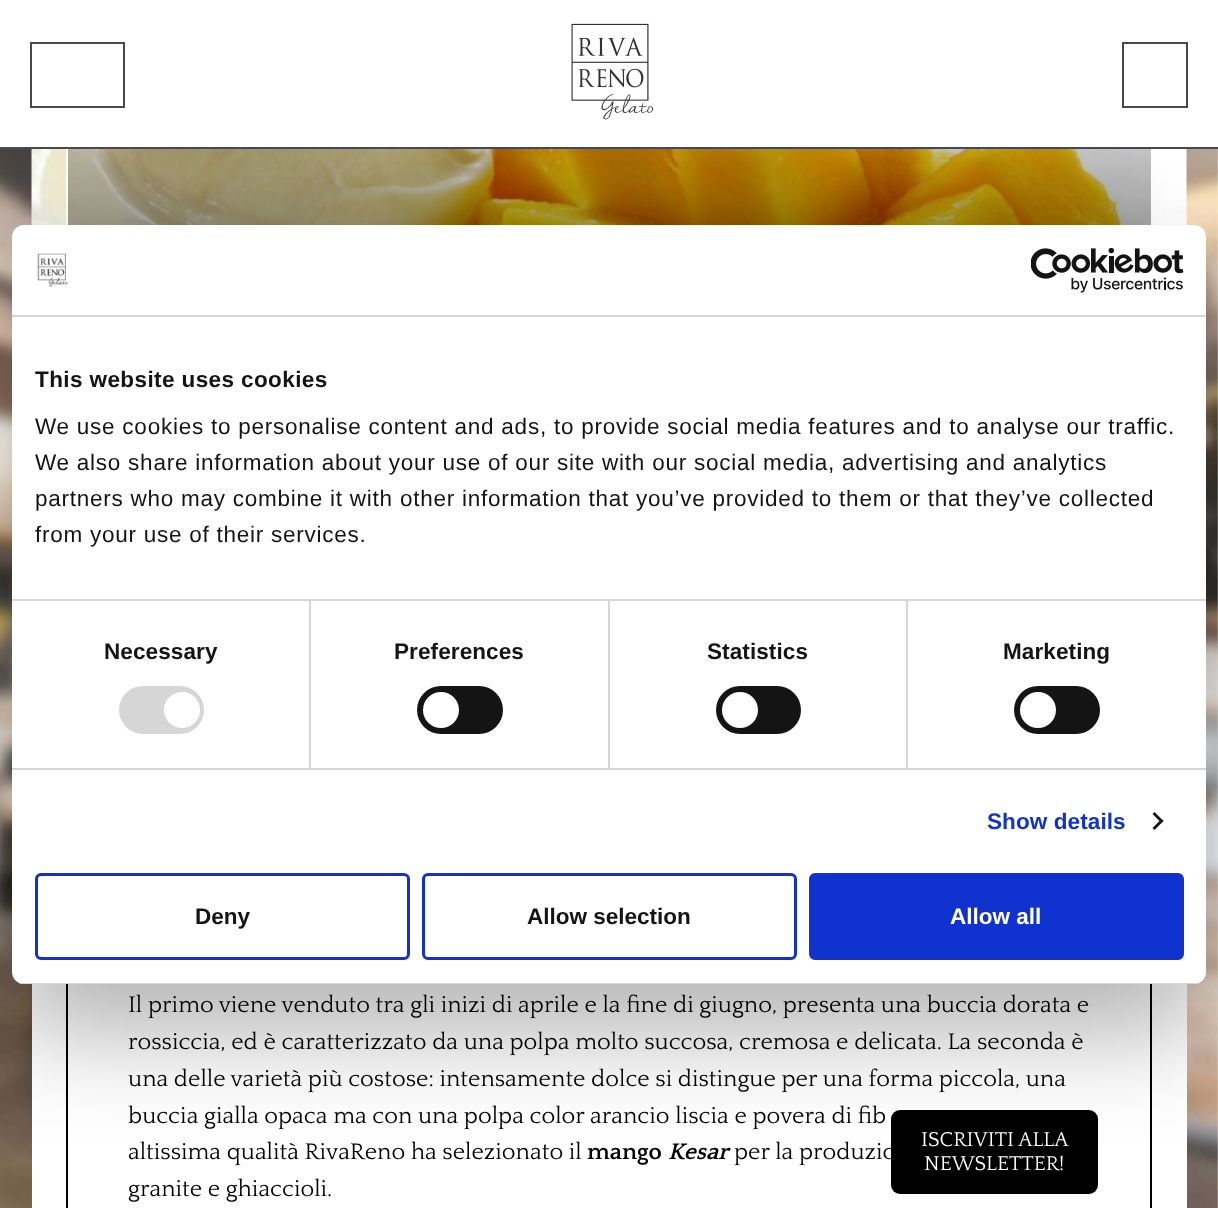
<svg xmlns="http://www.w3.org/2000/svg" xmlns:xlink="http://www.w3.org/1999/xlink" width="1218" height="1208" viewBox="0 0 1218 1208">
<style>
.cls-1{font:bold 22.5px Liberation Sans;letter-spacing:0.4px;fill:#141414}
.cls-2{font:22.5px Liberation Sans;letter-spacing:0.75px;fill:#141414}
.cls-3{font:bold 22.5px Liberation Sans;letter-spacing:0.1px;fill:#141414}
.cls-4{font:bold 22.5px Liberation Sans;letter-spacing:0.1px;fill:#1032cf}
.cls-5{font:bold 22.5px Liberation Sans;fill:#141414}
.cls-6{font:bold 22.5px Liberation Sans;fill:#ffffff}
.cls-7{font:23.6px Quattrocento;fill:#000000}
.cls-8{font:bold 23.6px Quattrocento;fill:#000000}
.cls-9{font:italic bold 23.6px Quattrocento;fill:#000000}
.cls-10{font:21px Quattrocento;fill:#ffffff}
</style>
<defs>
<linearGradient id="g1" gradientUnits="userSpaceOnUse" x1="609" y1="10" x2="609" y2="401"><stop offset="0" stop-color="#000000" stop-opacity="0"/><stop offset="1" stop-color="#000000" stop-opacity="0.65"/></linearGradient>
<clipPath id="clip1"><rect x="12" y="225" width="1194" height="759" rx="12"/></clipPath>
</defs>
<rect width="100%" height="100%" fill="#ffffff"/>
<image xlink:href="image0.png" x="0" y="149" width="1218" height="1059"/>
<image xlink:href="image4.png" x="31" y="149" width="1156" height="76"/>
<rect fill="none" stroke="#ffffff" stroke-width="2" x="67" y="10" width="1084" height="391"/>
<rect fill="#49484c" x="0" y="147" width="1218" height="2"/>
<image xlink:href="image3.png" x="571" y="23" width="83" height="97"/>
<rect fill="url(#g1)" x="68" y="149" width="1083" height="76"/>
<rect fill="#ffffff" x="32" y="984" width="1155" height="224"/>
<rect fill="none" stroke="#000000" stroke-width="2" x="67" y="472" width="1084" height="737"/>
<rect fill="#000000" x="891" y="1110" width="207" height="84" rx="9"/>
<rect fill="#000000" fill-opacity="0.3" filter="blur(51px)" x="12" y="273" width="1194" height="759" rx="12"/>
<rect fill="#ffffff" x="12" y="225" width="1194" height="759" rx="12"/>
<rect fill="#d6d6d6" x="12" y="315" width="1194" height="2"/>
<image xlink:href="image1.png" x="37" y="253" width="31" height="34"/>
<image xlink:href="image2.png" x="1031" y="248" width="153" height="45"/>
<rect fill="#d6d6d6" x="309" y="600" width="2" height="168"/>
<rect fill="#d6d6d6" x="608" y="600" width="2" height="168"/>
<rect fill="#d6d6d6" x="906" y="600" width="2" height="168"/>
<rect fill="#d6d6d6" x="12" y="599" width="1194" height="2"/>
<rect fill="#d6d6d6" x="12" y="768" width="1194" height="2"/>
<rect fill="#d6d6d6" x="119" y="686" width="85" height="48" rx="24"/>
<circle fill="#ffffff" cx="182" cy="710" r="18"/>
<rect fill="#141414" x="417" y="686" width="86" height="48" rx="24"/>
<circle fill="#ffffff" cx="441" cy="710" r="18"/>
<rect fill="#141414" x="716" y="686" width="85" height="48" rx="24"/>
<circle fill="#ffffff" cx="740" cy="710" r="18"/>
<rect fill="#141414" x="1014" y="686" width="86" height="48" rx="24"/>
<circle fill="#ffffff" cx="1038" cy="710" r="18"/>
<path fill="#141414" d="M1154.5 812L1163.5 821L1161.5 823L1152.5 814Z"/>
<path fill="#141414" d="M1161.5 819L1163.5 821L1154.5 830L1152.5 828Z"/>
<g clip-path="url(#clip1)">
<rect fill="#d6d6d6" x="12" y="983" width="1194" height="1"/>
</g>
<rect fill="none" stroke="#1032cf" stroke-width="3" x="36.5" y="874.5" width="372" height="84" rx="4.5"/>
<rect fill="none" stroke="#1032cf" stroke-width="3" x="423.5" y="874.5" width="372" height="84" rx="4.5"/>
<rect fill="#1032cf" stroke="#1032cf" stroke-width="3" x="810.5" y="874.5" width="372" height="84" rx="4.5"/>
<rect fill="none" stroke="#49484c" stroke-width="2" x="31" y="43" width="93" height="64"/>
<rect fill="none" stroke="#49484c" stroke-width="2" x="1123" y="43" width="64" height="64"/>
<text class="cls-1" x="35" y="387">This website uses cookies</text>
<text class="cls-2"><tspan x="35" y="434">We use cookies to personalise content and ads, to provide social media features and to analyse our traffic.</tspan><tspan x="35" y="470">We also share information about your use of our site with our social media, advertising and analytics</tspan><tspan x="35" y="506">partners who may combine it with other information that you’ve provided to them or that they’ve collected</tspan><tspan x="35" y="542">from your use of their services.</tspan></text>
<text class="cls-3" x="104" y="659">Necessary</text>
<text class="cls-3" x="394" y="659">Preferences</text>
<text class="cls-3" x="707" y="659">Statistics</text>
<text class="cls-3" x="1003" y="659">Marketing</text>
<text class="cls-4" x="987" y="829">Show details</text>
<text class="cls-5" x="195" y="924">Deny</text>
<text class="cls-5" x="527" y="924">Allow selection</text>
<text class="cls-6" x="950" y="924">Allow all</text>
<text class="cls-7"><tspan x="128" y="1012">Il primo viene venduto tra gli inizi di aprile e la fine di giugno, presenta una buccia dorata e</tspan><tspan x="128" y="1049">rossiccia, ed è caratterizzato da una polpa molto succosa, cremosa e delicata. La seconda è</tspan><tspan x="128" y="1086">una delle varietà più costose: intensamente dolce si distingue per una forma piccola, una</tspan><tspan x="128" y="1123">buccia gialla opaca ma con una polpa color arancio liscia e povera di fib</tspan><tspan x="128" y="1159">altissima qualità RivaReno ha selezionato il</tspan></text>
<text class="cls-8" x="587" y="1159">mango</text>
<text class="cls-9" x="668" y="1159">Kesar</text>
<text class="cls-7" x="734" y="1159">per la produzio</text>
<text class="cls-7" x="128" y="1196">granite e ghiaccioli.</text>
<text class="cls-10" x="921" y="1146">ISCRIVITI ALLA</text>
<text class="cls-10" x="924" y="1170">NEWSLETTER!</text>
</svg>
